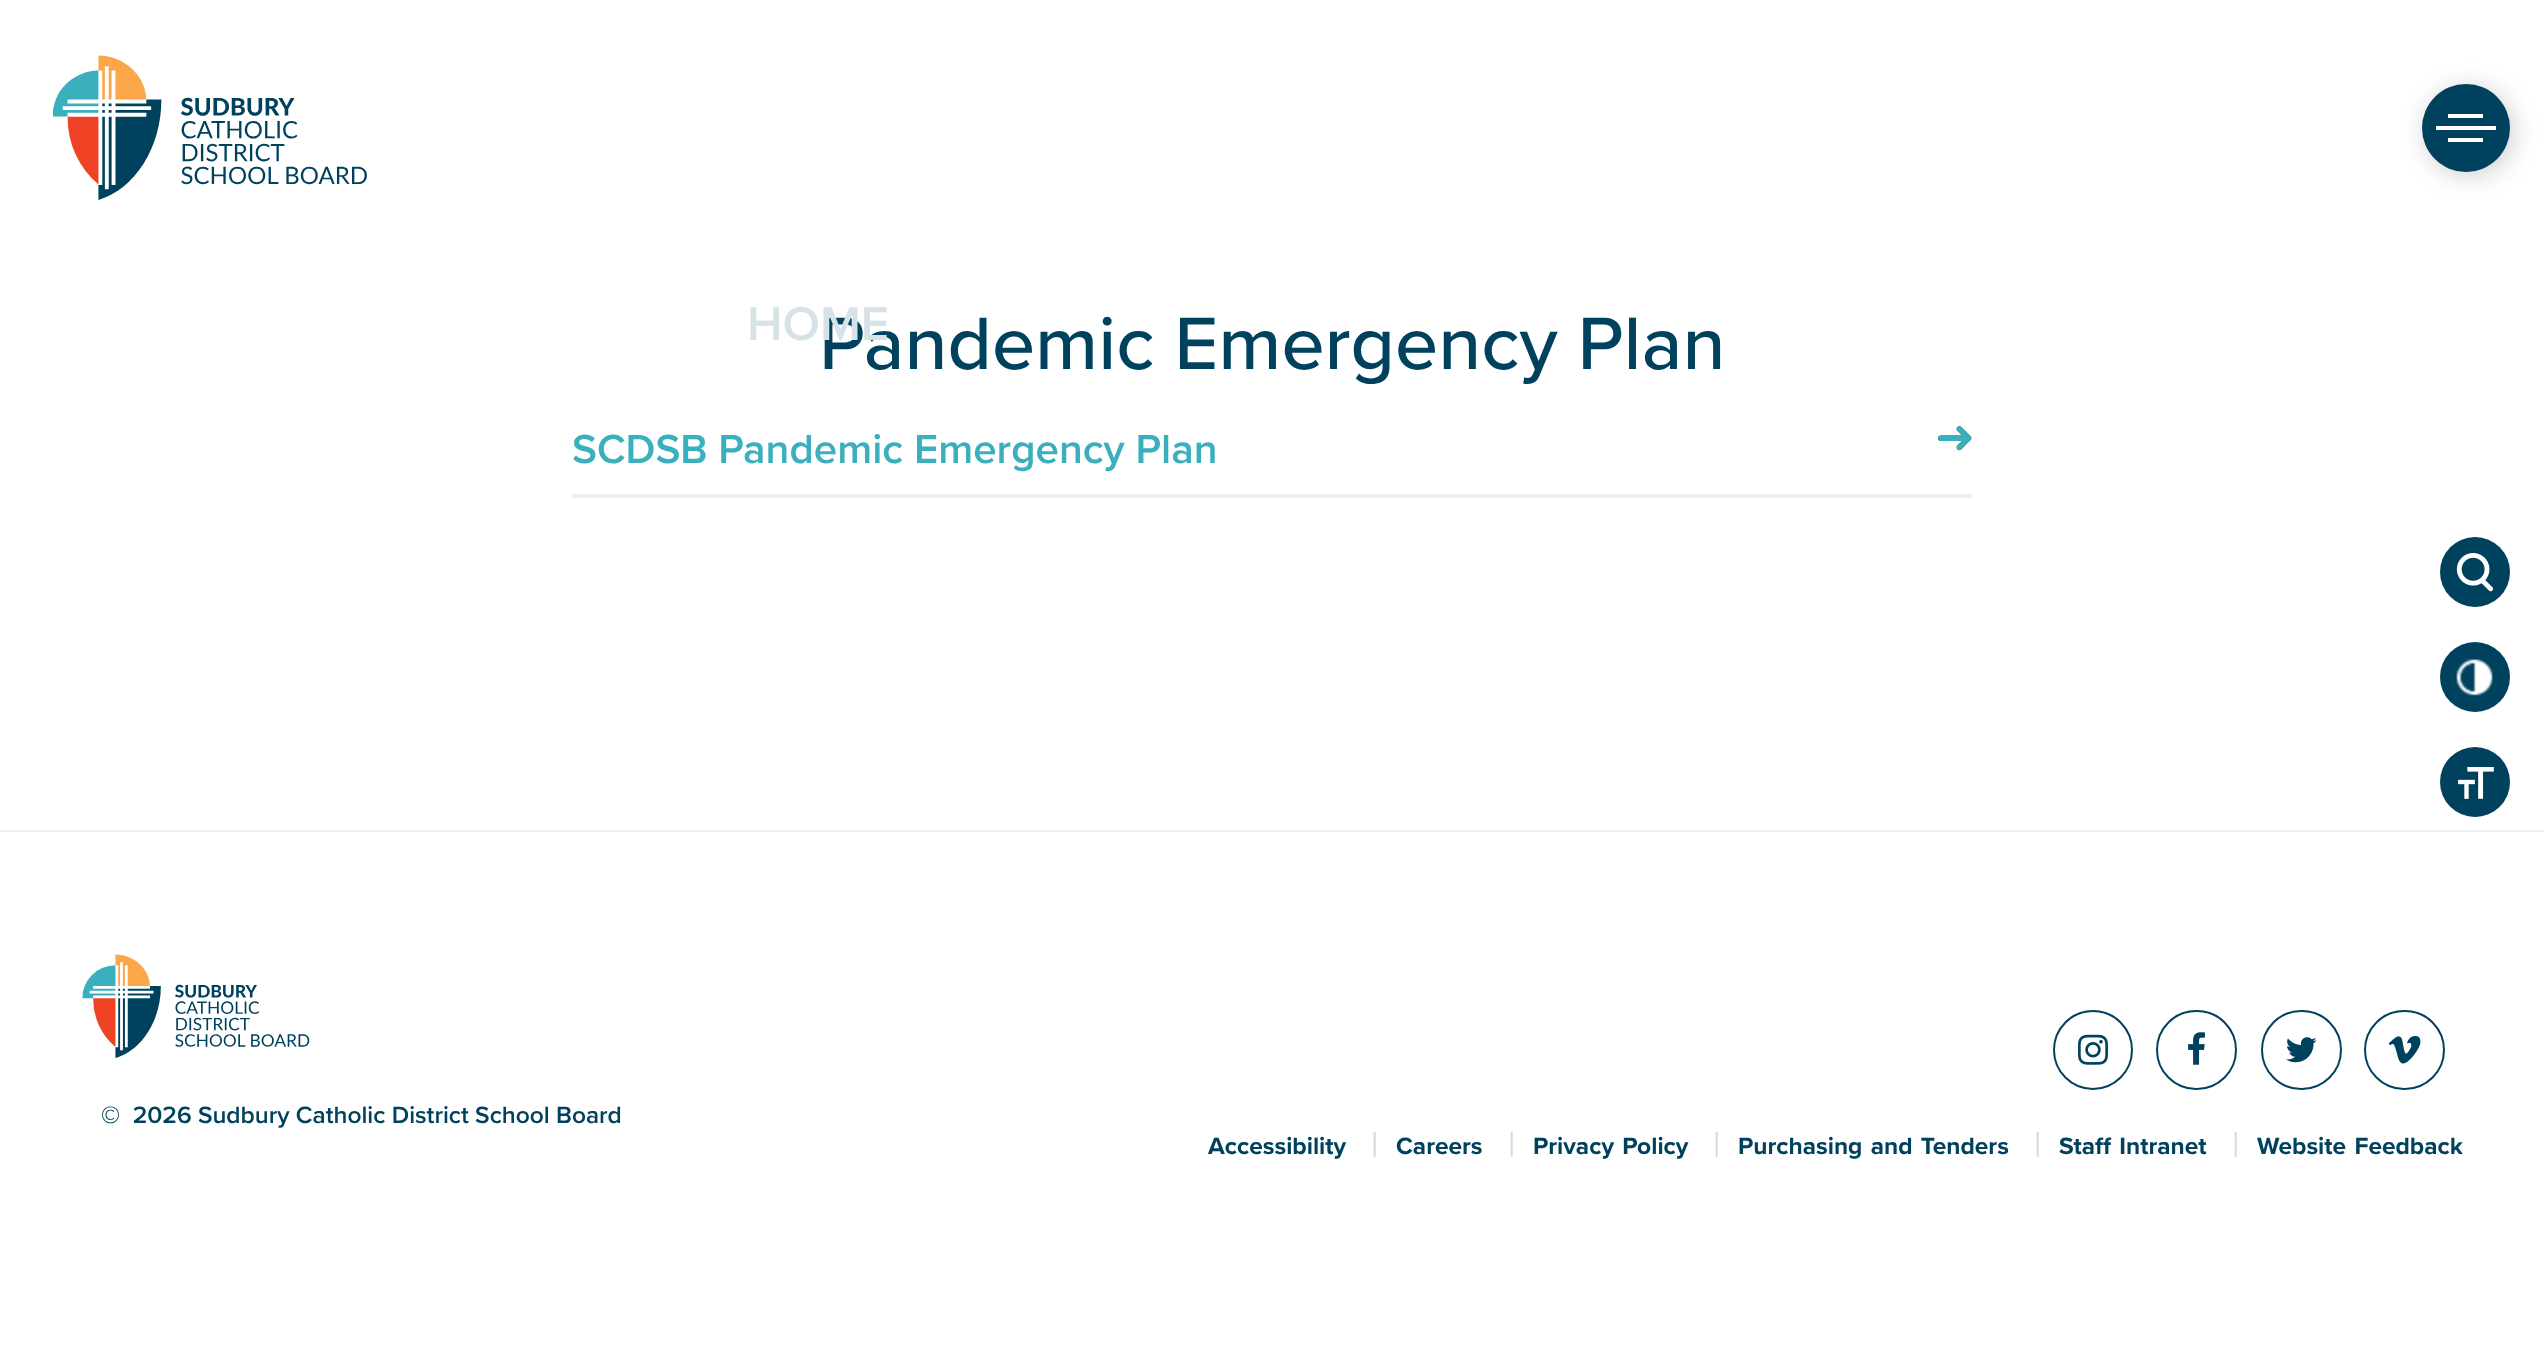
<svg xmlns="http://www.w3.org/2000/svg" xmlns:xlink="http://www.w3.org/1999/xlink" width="2544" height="1353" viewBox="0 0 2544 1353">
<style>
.cls-1{font:500 77px Proxima Nova;fill:#00425e}
.cls-2{font:600 49px Proxima Nova;fill:#d7e2e6}
.cls-3{font:600 42px Proxima Nova;fill:#3aafbd}
.cls-4{font:600 24.5px Proxima Nova;fill:#00425e}
.cls-5{font:bold 24.5px Proxima Nova;fill:#00425e}
.cls-6{font:35px Proxima Nova;fill:#d6d8db}
</style>
<rect width="100%" height="100%" fill="#ffffff"/>
<image xlink:href="image0.png" x="53" y="55" width="314" height="145"/>
<rect fill="#000000" fill-opacity="0.2" filter="blur(13px)" x="2426" y="88" width="87" height="87" rx="43.5"/>
<circle fill="#00425e" cx="2466" cy="128" r="44"/>
<rect fill="#ffffff" x="2448" y="114" width="35" height="4"/>
<rect fill="#ffffff" x="2436" y="126" width="60" height="4"/>
<rect fill="#ffffff" x="2448" y="138" width="35" height="4"/>
<image xlink:href="image1.png" x="1938" y="426" width="34" height="25"/>
<rect fill="#eeeeee" x="572" y="494" width="1400" height="4"/>
<circle fill="#00425e" cx="2475" cy="572" r="35"/>
<image xlink:href="image2.png" x="2456" y="553" width="37" height="39"/>
<circle fill="#00425e" cx="2475" cy="677" r="35"/>
<image xlink:href="image3.png" x="2456" y="659" width="37" height="37"/>
<circle fill="#00425e" cx="2475" cy="782" r="35"/>
<image xlink:href="image4.png" x="2458" y="767" width="36" height="32"/>
<rect fill="#eeeff0" x="0" y="830" width="2544" height="2"/>
<image xlink:href="image5.png" x="82" y="954" width="228" height="104"/>
<circle fill="none" stroke="#00425e" stroke-width="2" cx="2093" cy="1050" r="39"/>
<image xlink:href="image6.png" x="2078" y="1034" width="30" height="31"/>
<rect fill="none" stroke="#00425e" stroke-width="2" x="2157" y="1011" width="79" height="78" rx="39"/>
<image xlink:href="image7.png" x="2188" y="1032" width="17" height="33"/>
<rect fill="none" stroke="#00425e" stroke-width="2" x="2262" y="1011" width="79" height="78" rx="39"/>
<image xlink:href="image8.png" x="2286" y="1037" width="31" height="26"/>
<rect fill="none" stroke="#00425e" stroke-width="2" x="2365" y="1011" width="79" height="78" rx="39"/>
<image xlink:href="image9.png" x="2388" y="1036" width="33" height="28"/>
<text class="cls-1" x="819" y="369">Pandemic Emergency Plan</text>
<text class="cls-2" x="747" y="340">HOME</text>
<text class="cls-3" x="572" y="463">SCDSB Pandemic Emergency Plan</text>
<text class="cls-4" xml:space="preserve" x="101" y="1123">©  2026 Sudbury Catholic District School Board</text>
<text class="cls-5" x="1208" y="1154">Accessibility</text>
<text class="cls-6" x="1371" y="1156">|</text>
<text class="cls-5" x="1396" y="1154">Careers</text>
<text class="cls-6" x="1508" y="1156">|</text>
<text class="cls-5" x="1533" y="1154" word-spacing="2">Privacy Policy</text>
<text class="cls-6" x="1713" y="1156">|</text>
<text class="cls-5" x="1738" y="1154" word-spacing="2">Purchasing and Tenders</text>
<text class="cls-6" x="2034" y="1156">|</text>
<text class="cls-5" x="2059" y="1154" word-spacing="2">Staff Intranet</text>
<text class="cls-6" x="2232" y="1156">|</text>
<text class="cls-5" x="2257" y="1154" word-spacing="2">Website Feedback</text>
</svg>
